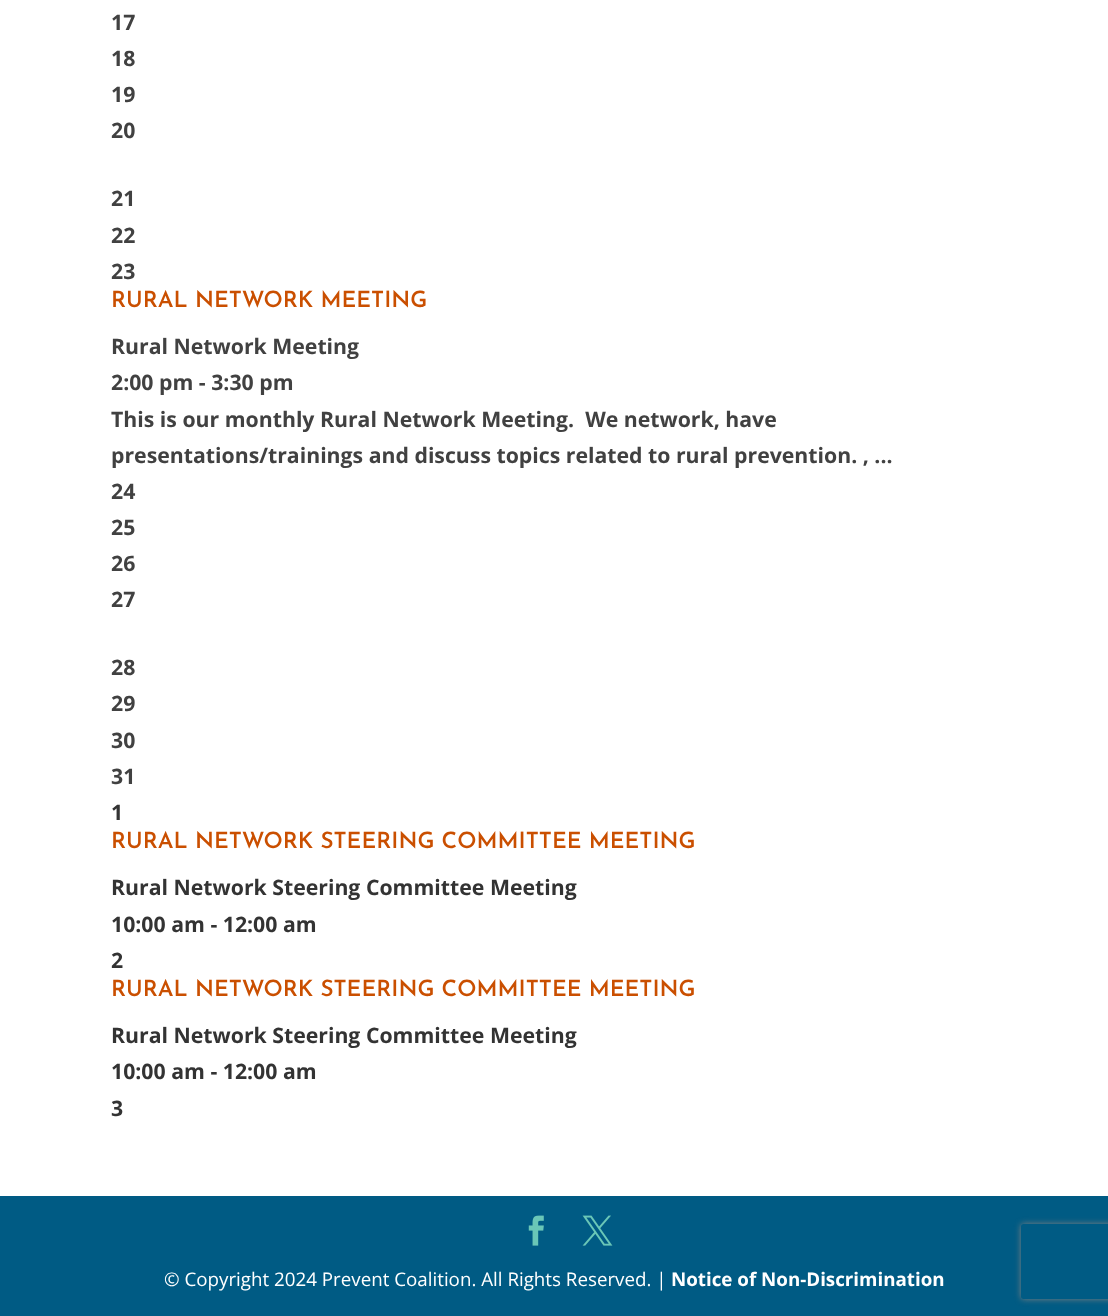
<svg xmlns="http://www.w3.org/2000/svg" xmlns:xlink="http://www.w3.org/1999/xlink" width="1108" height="1316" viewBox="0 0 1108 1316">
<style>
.cls-1{font:bold 21.25px Open Sans;fill:#414141}
.cls-2{font:600 22.5px Josefin Sans;fill:#ca4f00}
.cls-3{font:bold 21.25px Open Sans;fill:#333333}
.cls-4{font:18.75px Open Sans;fill:#ffffff}
.cls-5{font:bold 18.75px Open Sans;fill:#ffffff}
</style>
<defs>
<clipPath id="clip1"><path d="M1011 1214H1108V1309H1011ZM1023.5 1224H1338.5C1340 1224 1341 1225 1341 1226.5V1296.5C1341 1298 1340 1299 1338.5 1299H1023.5C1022 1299 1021 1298 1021 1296.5V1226.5C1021 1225 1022 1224 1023.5 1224Z" clip-rule="evenodd"/></clipPath>
</defs>
<rect width="100%" height="100%" fill="#ffffff"/>
<rect fill="#005b84" x="0" y="1196" width="1108" height="120"/>
<image xlink:href="image0.png" x="528" y="1215" width="16" height="31"/>
<image xlink:href="image1.png" x="582" y="1215" width="31" height="31"/>
<g clip-path="url(#clip1)">
<rect fill="#808080" filter="blur(3px)" x="1021" y="1224" width="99" height="75" rx="2.5"/>
</g>
<text class="cls-1"><tspan x="111" y="30">17</tspan><tspan x="111" y="66">18</tspan><tspan x="111" y="102">19</tspan><tspan x="111" y="138">20</tspan></text>
<text class="cls-1"><tspan x="111" y="206">21</tspan><tspan x="111" y="243">22</tspan><tspan x="111" y="279">23</tspan></text>
<text class="cls-2" x="111" y="307">RURAL NETWORK MEETING</text>
<text class="cls-1" xml:space="preserve"><tspan x="111" y="354">Rural Network Meeting</tspan><tspan x="111" y="390">2:00 pm - 3:30 pm</tspan><tspan x="111" y="427">This is our monthly Rural Network Meeting.  We network, have</tspan><tspan x="111" y="463">presentations/trainings and discuss topics related to rural prevention. , ...</tspan><tspan x="111" y="499">24</tspan><tspan x="111" y="535">25</tspan><tspan x="111" y="571">26</tspan><tspan x="111" y="607">27</tspan></text>
<text class="cls-1"><tspan x="111" y="675">28</tspan><tspan x="111" y="711">29</tspan><tspan x="111" y="748">30</tspan><tspan x="111" y="784">31</tspan></text>
<text class="cls-3" x="111" y="820">1</text>
<text class="cls-2" x="111" y="848">RURAL NETWORK STEERING COMMITTEE MEETING</text>
<text class="cls-3"><tspan x="111" y="895">Rural Network Steering Committee Meeting</tspan><tspan x="111" y="932">10:00 am - 12:00 am</tspan><tspan x="111" y="968">2</tspan></text>
<text class="cls-2" x="111" y="996">RURAL NETWORK STEERING COMMITTEE MEETING</text>
<text class="cls-3"><tspan x="111" y="1043">Rural Network Steering Committee Meeting</tspan><tspan x="111" y="1079">10:00 am - 12:00 am</tspan><tspan x="111" y="1116">3</tspan></text>
<text class="cls-4" x="164" y="1286">© Copyright 2024 Prevent Coalition. All Rights Reserved. |</text>
<text class="cls-5" x="671" y="1286">Notice of Non-Discrimination</text>
</svg>
